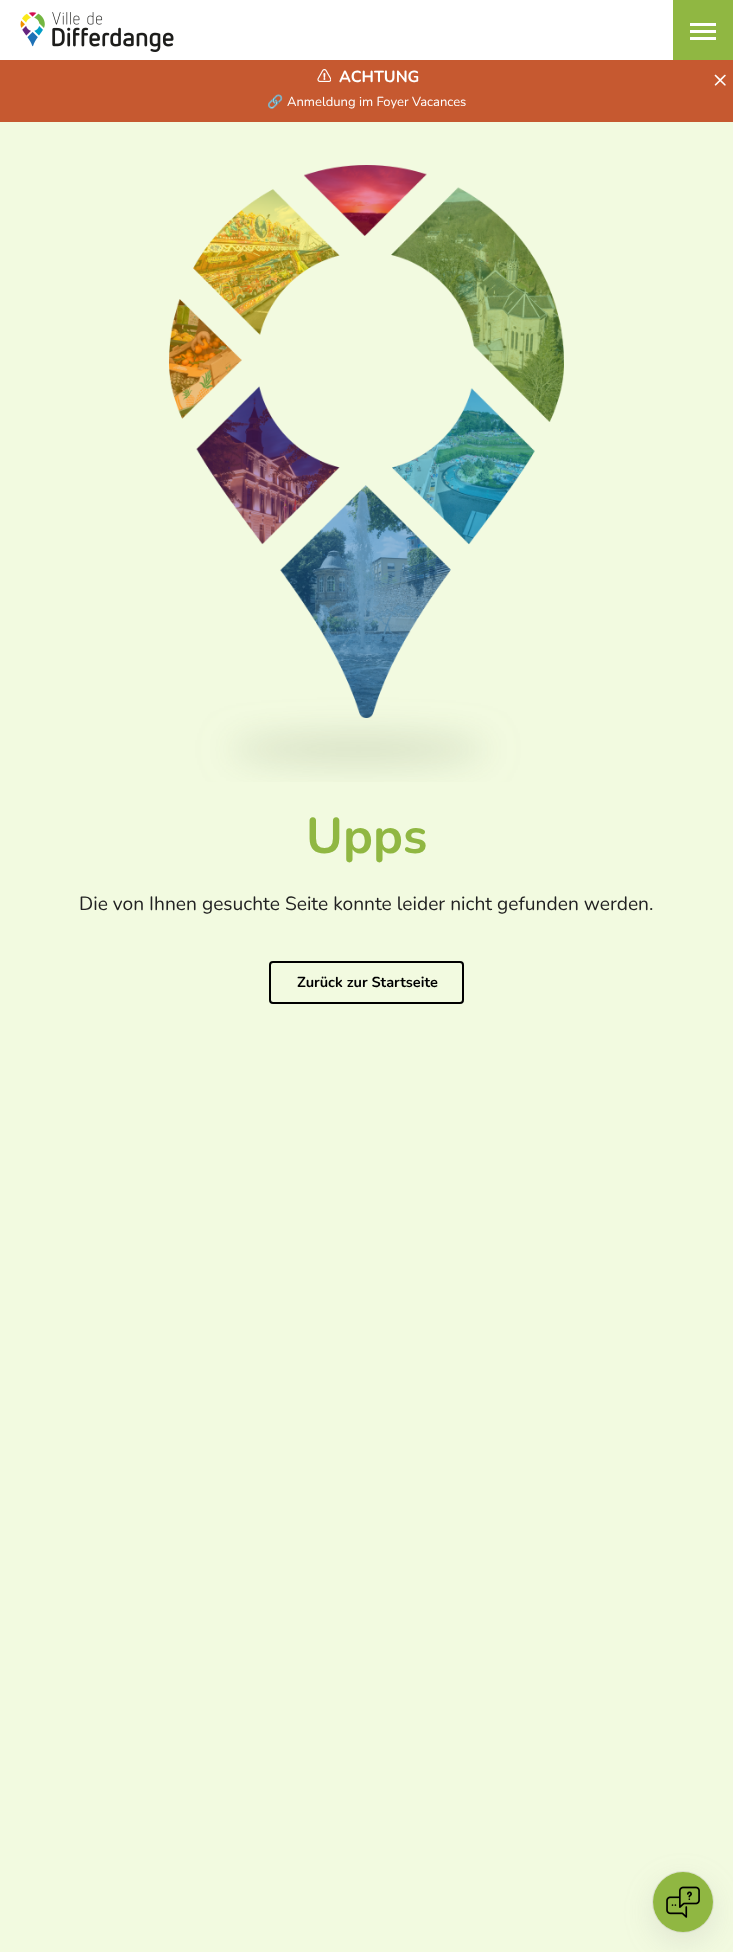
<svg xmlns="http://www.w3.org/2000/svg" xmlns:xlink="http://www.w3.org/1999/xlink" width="733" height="1952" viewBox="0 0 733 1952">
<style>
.cls-1{font:bold 16px Nunito;fill:#ffffff}
.cls-2{font:24px Nunito;fill:#ffffff}
.cls-3{font:13px Noto Color Emoji;fill:#ffffff}
.cls-4{font:13px Nunito;fill:#ffffff}
.cls-5{font:bold 50px Nunito;fill:#90b742}
.cls-6{font:19.2px Nunito;fill:#222222}
.cls-7{font:bold 14.5px Nunito;fill:#000000}
</style>
<rect width="100%" height="100%" fill="#f2fae0"/>
<rect fill="#ffffff" x="0" y="0" width="673" height="60"/>
<image xlink:href="image0.png" x="20" y="12" width="154" height="40"/>
<rect fill="#90b742" x="673" y="0" width="60" height="60"/>
<rect fill="#ffffff" x="690" y="30" width="26" height="3"/>
<rect fill="#ffffff" x="690" y="23" width="26" height="3"/>
<rect fill="#ffffff" x="690" y="37" width="26" height="3"/>
<rect fill="#c65930" x="0" y="60" width="733" height="62"/>
<image xlink:href="image1.png" x="317" y="69" width="14" height="13"/>
<image xlink:href="image2.png" x="169" y="165" width="395" height="617"/>
<rect fill="none" stroke="#000000" stroke-width="2" x="270" y="962" width="193" height="41" rx="3"/>
<circle fill="none" stroke="#e0e6d1" cx="683" cy="1902" r="30.5"/>
<rect fill="#969696" fill-opacity="0.2" filter="blur(15px)" x="653" y="1882" width="60" height="60" rx="30"/>
<circle fill="#90b742" cx="683" cy="1902" r="30"/>
<image xlink:href="image3.png" x="666" y="1886" width="34" height="32"/>
<text class="cls-1" x="339" y="82">ACHTUNG</text>
<text class="cls-2" x="713" y="87">×</text>
<text class="cls-3" x="267" y="106">🔗</text>
<text class="cls-4" x="287" y="106">Anmeldung im Foyer Vacances</text>
<text class="cls-5" x="306" y="853">Upps</text>
<text class="cls-6" x="79" y="910">Die von Ihnen gesuchte Seite konnte leider nicht gefunden werden.</text>
<text class="cls-7" x="297" y="987">Zurück zur Startseite</text>
</svg>
